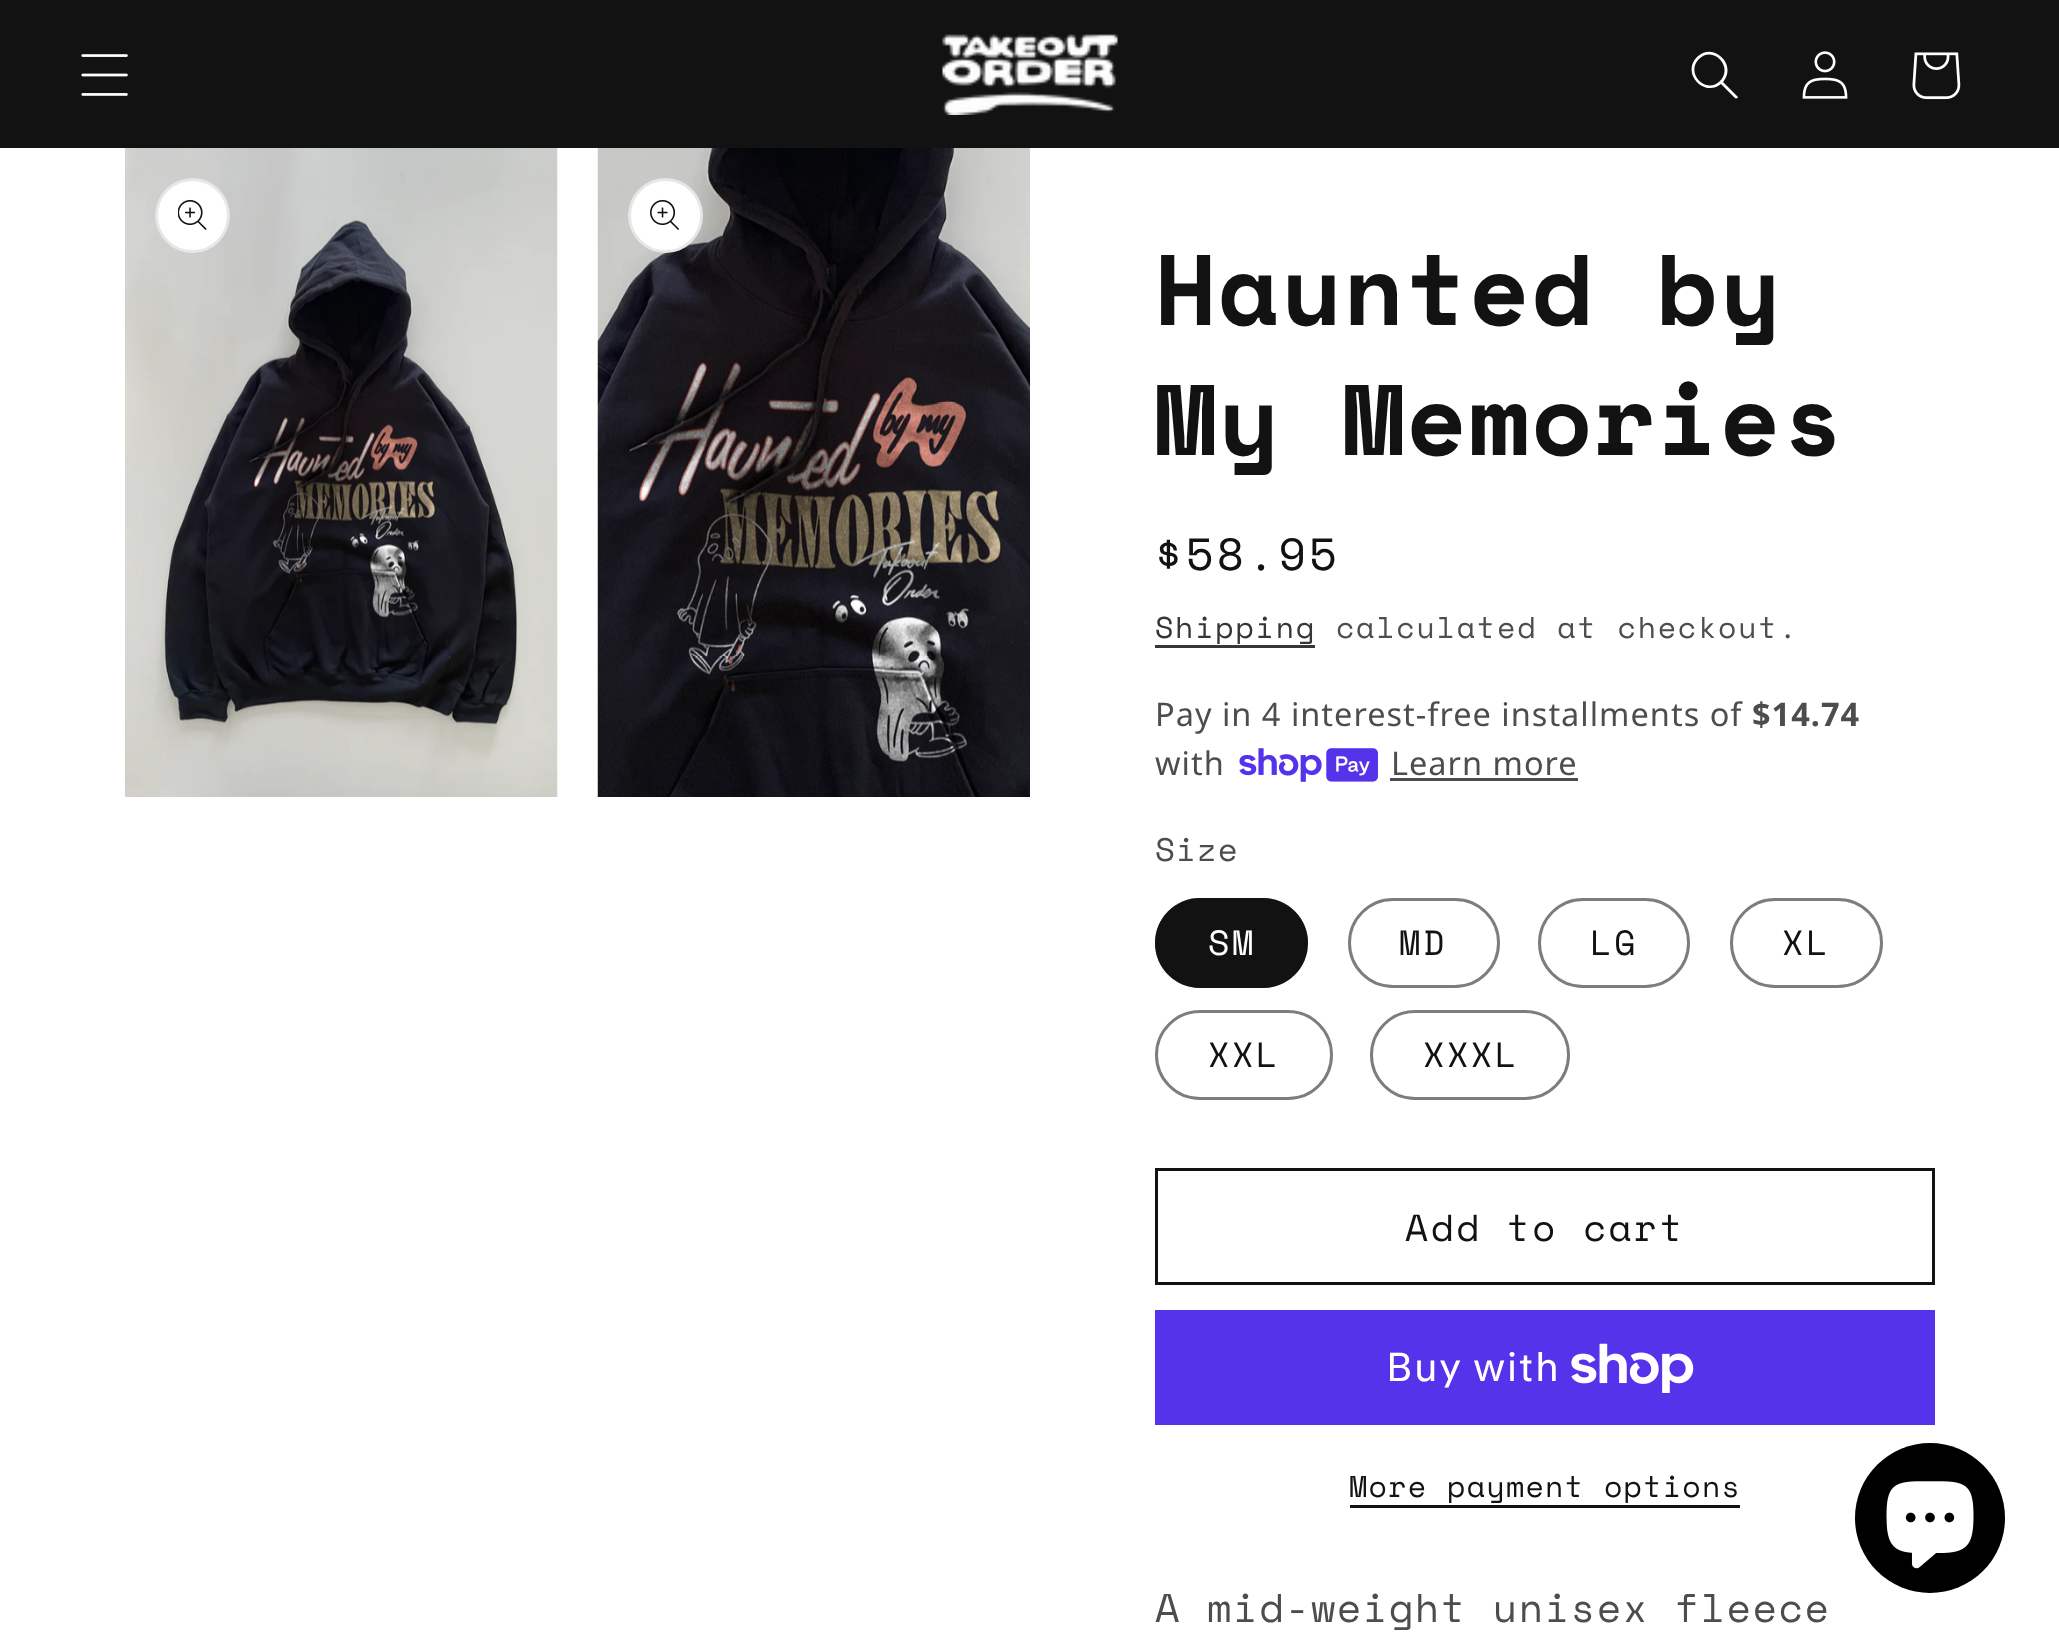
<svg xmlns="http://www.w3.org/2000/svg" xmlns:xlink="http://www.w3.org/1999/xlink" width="2059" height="1645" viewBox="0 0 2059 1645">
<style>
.cls-1{font:bold 100px Space Mono;letter-spacing:1.5px;fill:#121212}
.cls-2{font:45px Space Mono;letter-spacing:3.25px;fill:#121212}
.cls-3{font:30px Space Mono;letter-spacing:1.75px;fill:#363636}
.cls-4{font:30px Space Mono;letter-spacing:1.75px;fill:#4d4d4d}
.cls-5{font:32.5px Noto Sans;letter-spacing:1px;fill:#4d4d4d}
.cls-6{font:bold 32.5px Noto Sans;letter-spacing:1px;fill:#4d4d4d}
.cls-7{font:32.5px Space Mono;letter-spacing:1px;fill:#4d4d4d}
.cls-8{font:35px Space Mono;letter-spacing:2.5px;fill:#ffffff}
.cls-9{font:35px Space Mono;letter-spacing:2.5px;fill:#121212}
.cls-10{font:37.5px Space Mono;letter-spacing:2.5px;fill:#121212}
.cls-11{font:40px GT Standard;letter-spacing:1.5px;fill:#ffffff}
.cls-12{font:30px Space Mono;letter-spacing:1.25px;fill:#121212}
.cls-13{font:40px Space Mono;letter-spacing:1.5px;fill:#4d4d4d}
</style>
<rect width="100%" height="100%" fill="#ffffff"/>
<rect fill="#121212" x="0" y="0" width="2059" height="148"/>
<image xlink:href="image0.png" x="81" y="54" width="47" height="42"/>
<image xlink:href="image1.png" x="942" y="34" width="176" height="81"/>
<path fill="#ffffff" fill-rule="evenodd" d="M1720 81C1706 95 1685 73 1699 59C1713 45 1734 67 1720 81M1721 84C1704 98 1681 73 1697 57C1713 41 1738 65 1723 82L1738 97C1738 98 1736 99 1735 98Z"/>
<image xlink:href="image2.png" x="1802" y="51" width="46" height="48"/>
<image xlink:href="image3.png" x="1912" y="52" width="49" height="48"/>
<image xlink:href="image4.png" x="125" y="148" width="433" height="649"/>
<circle fill="#ffffff" cx="192.5" cy="215.5" r="37.5"/>
<circle fill="none" stroke="#121212" stroke-opacity="0.1" stroke-width="3" cx="192.5" cy="215.5" r="36"/>
<image xlink:href="image5.png" x="178" y="199" width="29" height="31"/>
<image xlink:href="image6.png" x="597" y="148" width="433" height="649"/>
<circle fill="#ffffff" cx="665.5" cy="215.5" r="37.5"/>
<circle fill="none" stroke="#121212" stroke-opacity="0.1" stroke-width="3" cx="665.5" cy="215.5" r="36"/>
<image xlink:href="image7.png" x="650" y="199" width="29" height="31"/>
<rect fill="#363636" x="1155" y="645" width="160" height="3"/>
<image xlink:href="image8.png" x="1239" y="748" width="139" height="34"/>
<rect fill="#4d4d4d" x="1390" y="778" width="188" height="3"/>
<rect fill="#121212" x="1155" y="898" width="153" height="90" rx="45"/>
<rect fill="none" stroke="#121212" stroke-opacity="0.55" stroke-width="3" x="1156.5" y="899.5" width="150" height="87" rx="43.5"/>
<rect fill="none" stroke="#7d7d7d" stroke-width="3" x="1349.5" y="899.5" width="149" height="87" rx="43.5"/>
<rect fill="none" stroke="#7d7d7d" stroke-width="3" x="1539.5" y="899.5" width="149" height="87" rx="43.5"/>
<rect fill="none" stroke="#7d7d7d" stroke-width="3" x="1731.5" y="899.5" width="150" height="87" rx="43.5"/>
<rect fill="none" stroke="#7d7d7d" stroke-width="3" x="1156.5" y="1011.5" width="175" height="87" rx="43.5"/>
<rect fill="none" stroke="#7d7d7d" stroke-width="3" x="1371.5" y="1011.5" width="197" height="87" rx="43.5"/>
<rect fill="none" stroke="#121212" stroke-width="3" x="1156.5" y="1169.5" width="777" height="114"/>
<rect fill="#5433eb" x="1155" y="1310" width="780" height="115"/>
<image xlink:href="image9.png" x="1571" y="1343" width="123" height="50"/>
<rect fill="#121212" x="1350" y="1505" width="390" height="3"/>
<circle fill="#000000" cx="1930" cy="1518" r="75"/>
<image xlink:href="image10.png" x="1886" y="1481" width="88" height="88"/>
<text class="cls-1"><tspan x="1155" y="325">Haunted by</tspan><tspan x="1155" y="455">My Memories</tspan></text>
<text class="cls-2" x="1155" y="570">$58.95</text>
<text class="cls-3" x="1155" y="638">Shipping</text>
<text class="cls-4" x="1336" y="638">calculated at checkout.</text>
<text class="cls-5" x="1155" y="726">Pay in 4 interest-free installments of</text>
<text class="cls-6" x="1752" y="726">$14.74</text>
<text class="cls-5" x="1155" y="775">with</text>
<text class="cls-5" x="1391" y="775">Learn more</text>
<text class="cls-7" x="1155" y="861">Size</text>
<text class="cls-8" x="1208" y="955">SM</text>
<text class="cls-9" x="1399" y="955">MD</text>
<text class="cls-9" x="1590" y="955">LG</text>
<text class="cls-9" x="1782" y="955">XL</text>
<text class="cls-9" x="1208" y="1067">XXL</text>
<text class="cls-9" x="1423" y="1067">XXXL</text>
<text class="cls-10" x="1405" y="1241">Add to cart</text>
<text class="cls-11" x="1386" y="1381">Buy with</text>
<text class="cls-12" x="1349" y="1497">More payment options</text>
<text class="cls-13" x="1155" y="1622">A mid-weight unisex fleece</text>
</svg>
